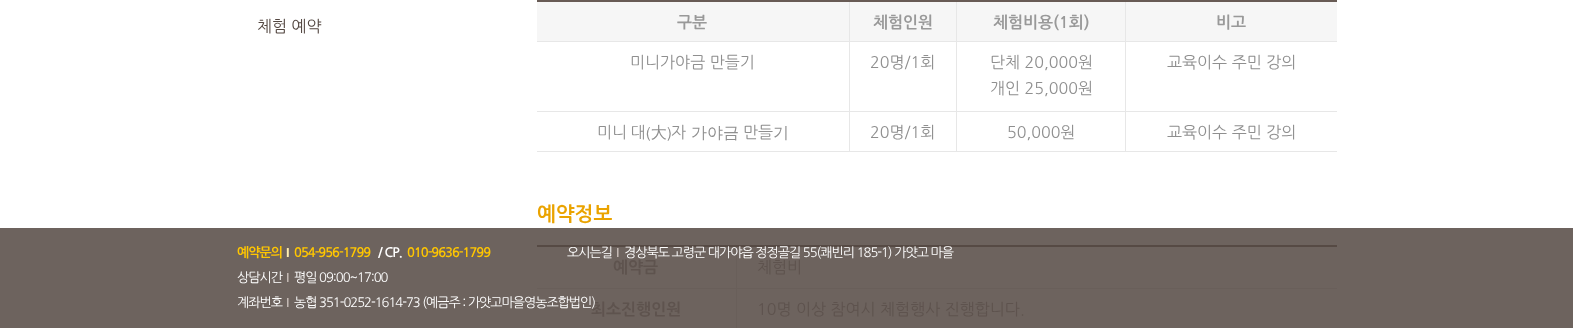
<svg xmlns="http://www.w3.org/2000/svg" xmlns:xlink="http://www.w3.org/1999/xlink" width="1573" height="328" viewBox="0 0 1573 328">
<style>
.cls-1{font:16px NanumGothic;fill:#534741}
.cls-2{font:bold 16px NanumGothic;fill:#999999}
.cls-3{font:16px NanumGothic;fill:#8f8f8f}
.cls-4{font:500 16px WenQuanYi Zen Hei;fill:#8f8f8f}
.cls-5{font:bold 20px NanumGothic;fill:#eaa300}
.cls-6{font:bold 16px NanumGothic;fill:#5e534e}
.cls-7{font:16px NanumGothic;fill:#5e534e}
.cls-8{font:bold 13px NanumGothic;letter-spacing:-1px;fill:#ffc600}
.cls-9{font:bold 13px Liberation Sans;letter-spacing:-1px;fill:#ffedaf}
.cls-10{font:bold 13px NanumGothic;letter-spacing:-1px;fill:#ffffff}
.cls-11{font:13px NanumGothic;letter-spacing:-1px;fill:#ffffff}
.cls-12{font:13px Liberation Sans;letter-spacing:-1px;fill:#d5cbc6}
</style>
<rect width="100%" height="100%" fill="#ffffff"/>
<rect fill="#6d635e" x="0" y="228" width="1573" height="100"/>
<rect fill="#685b55" x="537" y="0" width="800" height="2"/>
<rect fill="#f6f6f6" x="537" y="2" width="312" height="39"/>
<rect fill="#e7e7e7" x="849" y="2" width="1" height="150"/>
<rect fill="#e7e7e7" x="537" y="41" width="313" height="1"/>
<rect fill="#f6f6f6" x="850" y="2" width="106" height="39"/>
<rect fill="#e7e7e7" x="956" y="2" width="1" height="150"/>
<rect fill="#e7e7e7" x="850" y="41" width="107" height="1"/>
<rect fill="#f6f6f6" x="957" y="2" width="168" height="39"/>
<rect fill="#e7e7e7" x="1125" y="2" width="1" height="150"/>
<rect fill="#e7e7e7" x="957" y="41" width="380" height="1"/>
<rect fill="#f6f6f6" x="1126" y="2" width="211" height="39"/>
<rect fill="#e7e7e7" x="537" y="111" width="800" height="1"/>
<rect fill="#e7e7e7" x="537" y="151" width="800" height="1"/>
<rect fill="#564a44" x="537" y="245" width="800" height="2"/>
<rect fill="#695f5a" x="736" y="247" width="1" height="81"/>
<rect fill="#695f5a" x="537" y="288" width="800" height="1"/>
<text class="cls-1" x="257" y="32">체험 예약</text>
<text class="cls-2" x="677" y="28">구분</text>
<text class="cls-2" x="873" y="28">체험인원</text>
<text class="cls-2" x="993" y="28">체험비용(1회)</text>
<text class="cls-2" x="1216" y="28">비고</text>
<text class="cls-3" x="630" y="68">미니가야금 만들기</text>
<text class="cls-3" x="870" y="68">20명/1회</text>
<text class="cls-3"><tspan x="990" y="68">단체 20,000원</tspan><tspan x="990" y="94">개인 25,000원</tspan></text>
<text class="cls-3" x="1167" y="68">교육이수 주민 강의</text>
<text class="cls-3" x="597" y="138" word-spacing="-1">미니 대</text>
<text class="cls-4" x="646" y="138">(大)</text>
<text class="cls-3" x="671" y="138">자</text>
<text class="cls-4" x="691" y="138">가야금</text>
<text class="cls-3" x="743" y="138">만들</text>
<text class="cls-4" x="773" y="138">기</text>
<text class="cls-3" x="870" y="138">20명/1회</text>
<text class="cls-3" x="1007" y="138">50,000원</text>
<text class="cls-3" x="1167" y="138">교육이수 주민 강의</text>
<text class="cls-5" x="537" y="221">예약정보</text>
<text class="cls-6" x="613" y="273">예약금</text>
<text class="cls-7" x="757" y="273">체험비</text>
<text class="cls-6" x="591" y="315">최소진행인원</text>
<text class="cls-7" x="757" y="315">10명 이상 참여시 체험행사 진행합니다.</text>
<text class="cls-8" x="237" y="257">예약문의</text>
<text class="cls-9" x="286" y="257">Ι</text>
<text class="cls-8" x="294" y="257">054-956-1799</text>
<text class="cls-10" x="378" y="257">/ CP.</text>
<text class="cls-8" x="407" y="257">010-9636-1799</text>
<text class="cls-11" x="567" y="257">오시는길</text>
<text class="cls-12" x="616" y="257">Ι</text>
<text class="cls-11" x="624" y="257">경상북도 고령군 대가야읍 정정골길 55(쾌빈리 185-1) 가얏고 마을</text>
<text class="cls-11" x="237" y="282">상담시간</text>
<text class="cls-12" x="286" y="282">Ι</text>
<text class="cls-11" x="294" y="282">평일 09:00~17:00</text>
<text class="cls-11" x="237" y="307">계좌번호</text>
<text class="cls-12" x="286" y="307">Ι</text>
<text class="cls-11" x="294" y="307">농협 351-0252-1614-73 (예금주 : 가얏고마을영농조합법인)</text>
</svg>
